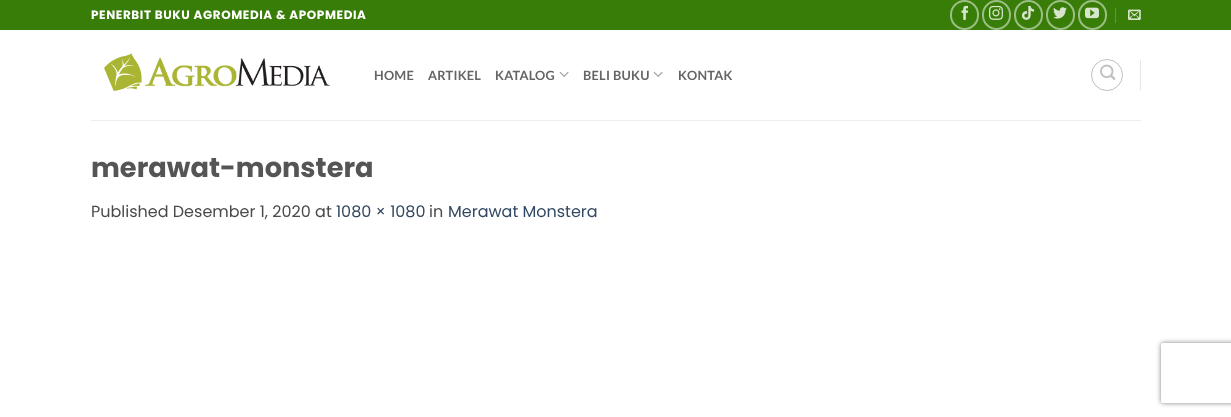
<svg xmlns="http://www.w3.org/2000/svg" xmlns:xlink="http://www.w3.org/1999/xlink" width="1231" height="417" viewBox="0 0 1231 417">
<style>
.cls-1{font:bold 12px Poppins;letter-spacing:0.6px;fill:#ffffff}
.cls-2{font:bold 12.75px Lato;letter-spacing:0.25px;fill:#656565}
.cls-3{font:bold 27.25px Poppins;fill:#555555}
.cls-4{font:16px Poppins;fill:#4a4a4a}
.cls-5{font:16px Poppins;fill:#334862}
</style>
<defs>
<clipPath id="clip1"><path d="M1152 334H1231V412H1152ZM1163 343H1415C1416 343 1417 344 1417 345V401C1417 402 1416 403 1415 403H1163C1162 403 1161 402 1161 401V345C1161 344 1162 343 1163 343Z" clip-rule="evenodd"/></clipPath>
</defs>
<rect width="100%" height="100%" fill="#ffffff"/>
<rect fill="#387d07" x="0" y="0" width="1231" height="30"/>
<rect fill="none" stroke="#9cbe83" stroke-width="2" x="951" y="1" width="27" height="28" rx="13.5"/>
<image xlink:href="image0.png" x="961" y="5" width="7" height="15"/>
<rect fill="none" stroke="#9cbe83" stroke-width="2" x="983" y="1" width="27" height="28" rx="13.5"/>
<image xlink:href="image1.png" x="989" y="5" width="14" height="15"/>
<rect fill="none" stroke="#9cbe83" stroke-width="2" x="1015" y="1" width="27" height="28" rx="13.5"/>
<image xlink:href="image2.png" x="1021" y="5" width="14" height="15"/>
<rect fill="none" stroke="#9cbe83" stroke-width="2" x="1047" y="1" width="27" height="28" rx="13.5"/>
<image xlink:href="image3.png" x="1053" y="7" width="14" height="12"/>
<rect fill="none" stroke="#9cbe83" stroke-width="2" x="1079" y="1" width="27" height="28" rx="13.5"/>
<image xlink:href="image4.png" x="1085" y="7" width="14" height="12"/>
<rect fill="#609739" x="1115" y="8" width="1" height="15"/>
<image xlink:href="image5.png" x="1128" y="9" width="13" height="11"/>
<image xlink:href="image6.png" x="104" y="53" width="226" height="38"/>
<image xlink:href="image7.png" x="559" y="71" width="10" height="6"/>
<image xlink:href="image7.png" x="653" y="71" width="10" height="6"/>
<circle fill="none" stroke="#c0c0c0" cx="1107" cy="75" r="15.5"/>
<image xlink:href="image8.png" x="1100" y="64" width="16" height="16"/>
<rect fill="#e6e6e6" x="1140" y="60" width="1" height="30"/>
<rect fill="#ededed" x="91" y="120" width="1050" height="1"/>
<g clip-path="url(#clip1)">
<rect fill="#808080" filter="blur(2.5px)" x="1161" y="343" width="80" height="60" rx="2"/>
</g>
<text class="cls-1" x="91" y="19">PENERBIT BUKU AGROMEDIA &amp; APOPMEDIA</text>
<text class="cls-2" x="374" y="80">HOME</text>
<text class="cls-2" x="428" y="80">ARTIKEL</text>
<text class="cls-2" x="495" y="80">KATALOG</text>
<text class="cls-2" x="583" y="80">BELI BUKU</text>
<text class="cls-2" x="678" y="80">KONTAK</text>
<text class="cls-3" x="91" y="177">merawat-monstera</text>
<text class="cls-4" x="91" y="217">Published Desember 1, 2020 at</text>
<text class="cls-5" x="336" y="217">1080 × 1080</text>
<text class="cls-4" x="429" y="217">in</text>
<text class="cls-5" x="448" y="217">Merawat Monstera</text>
</svg>
